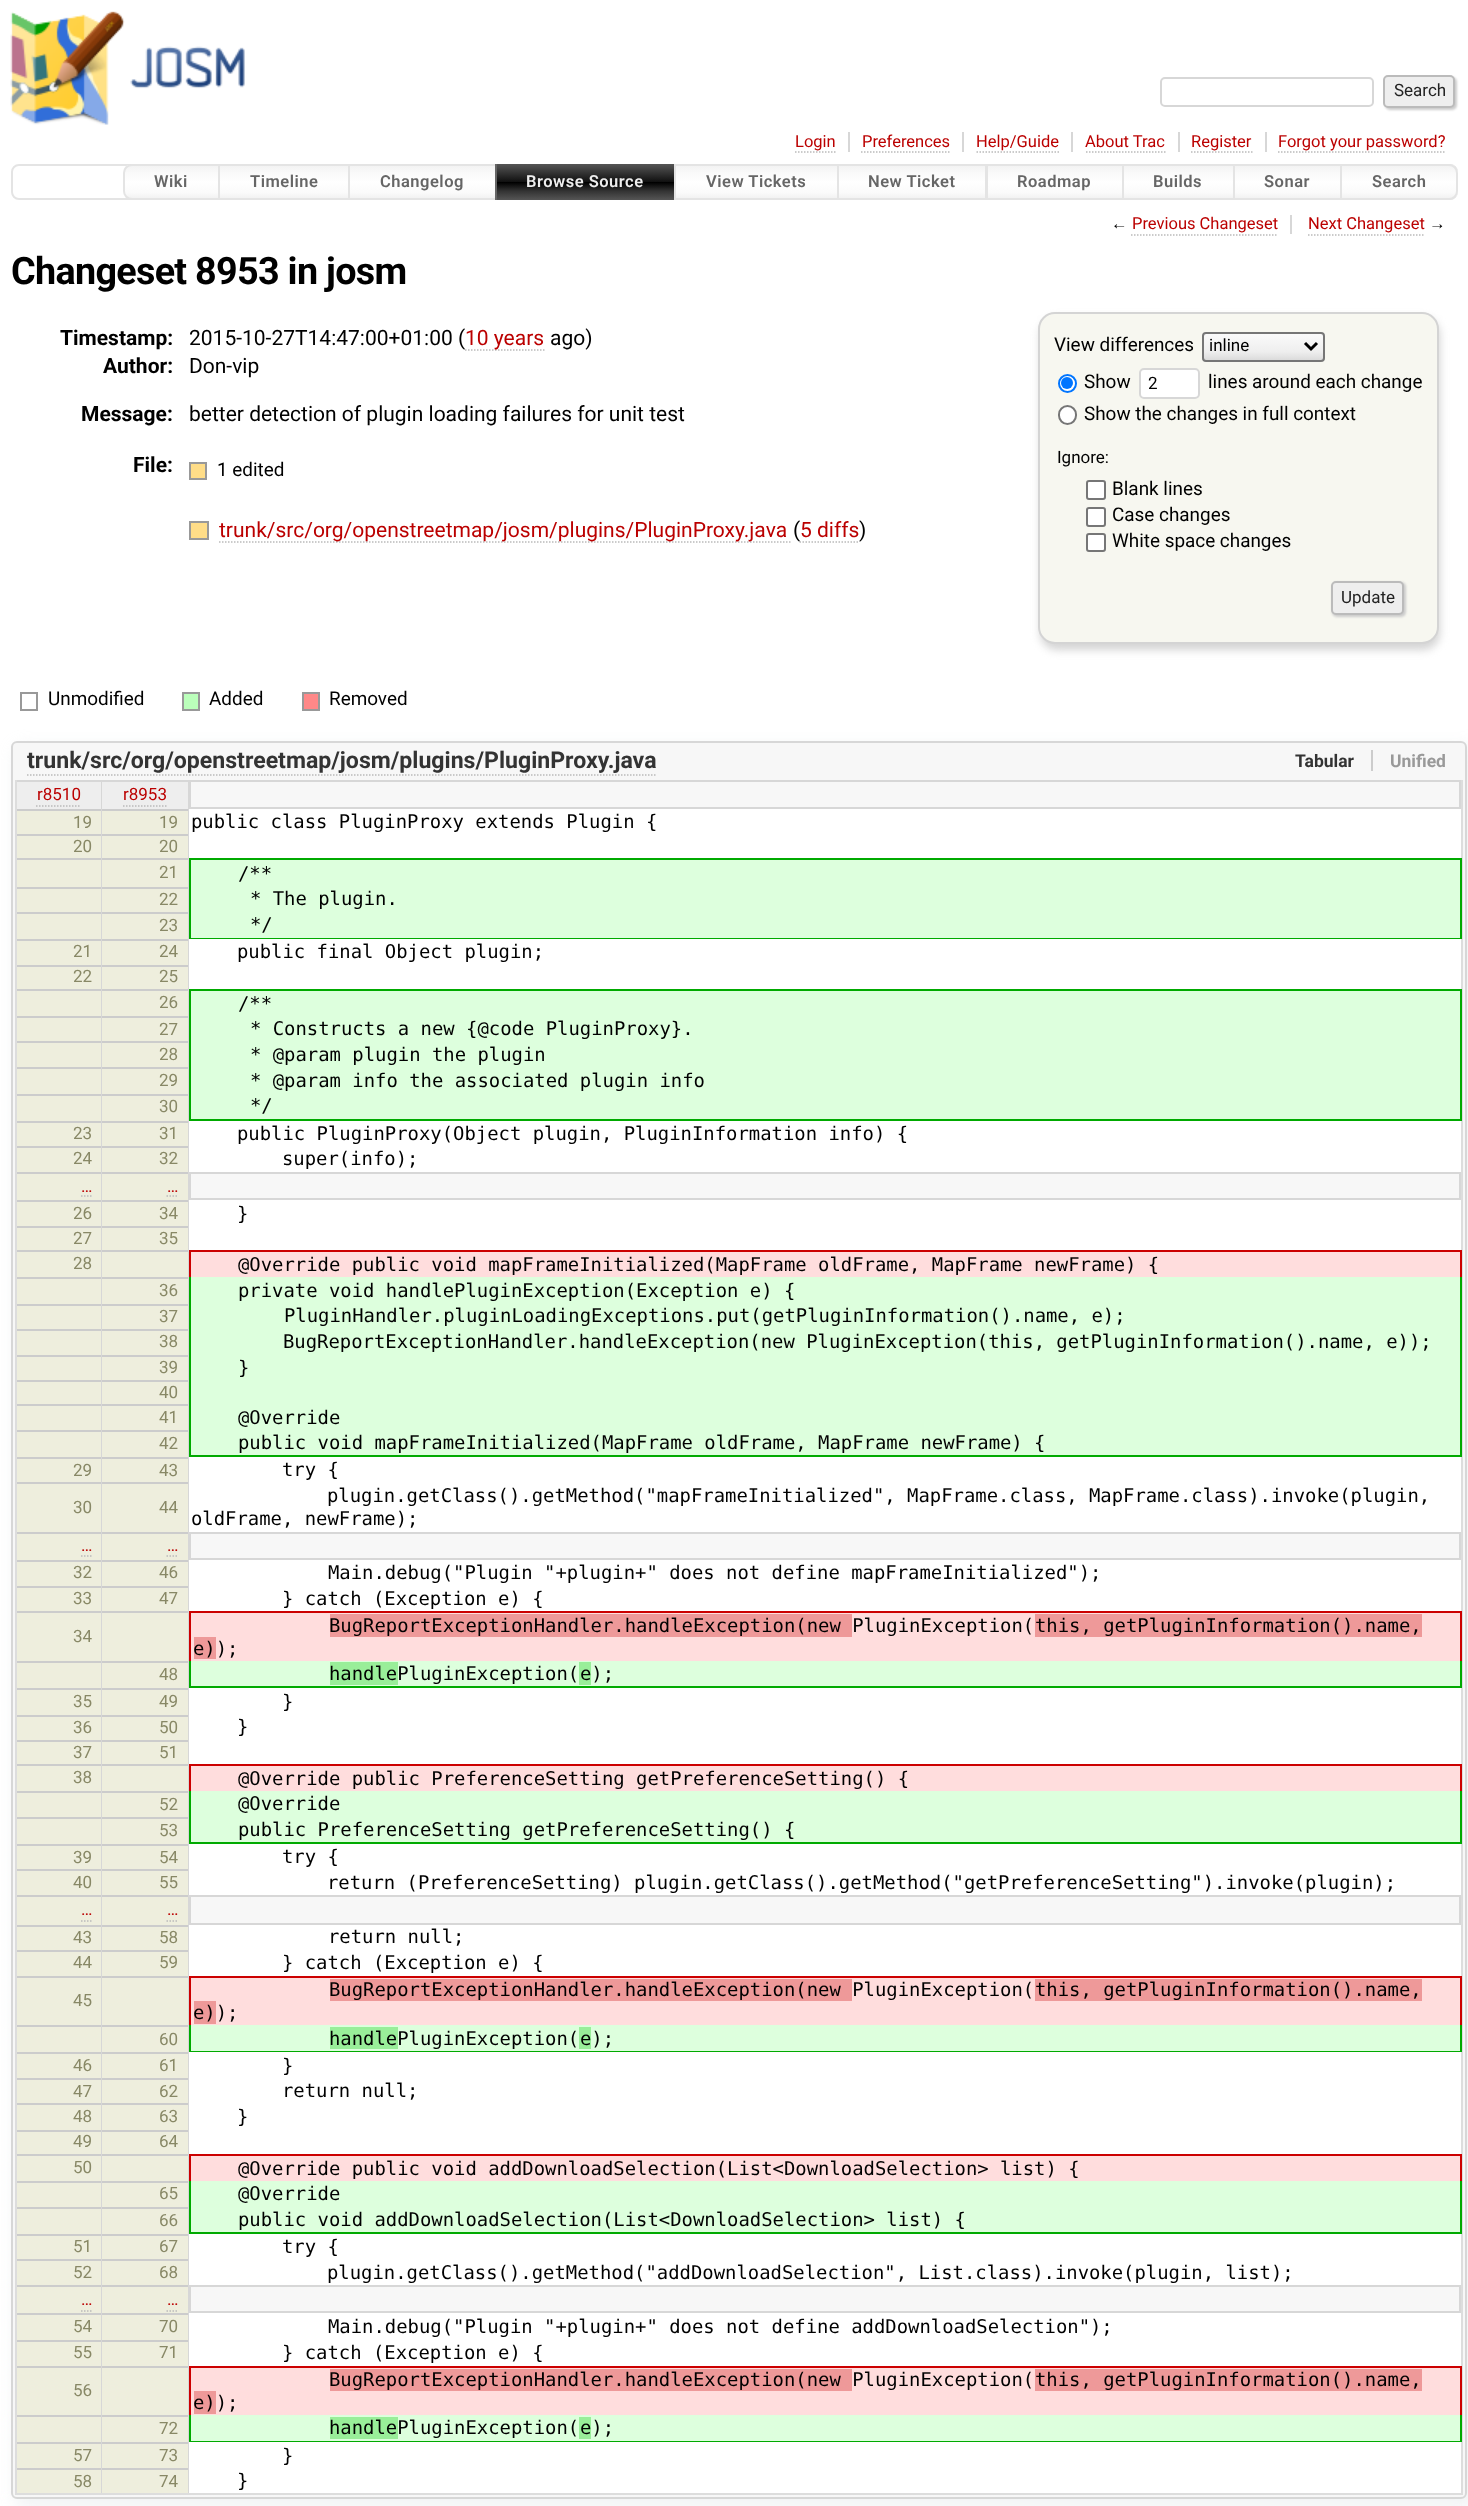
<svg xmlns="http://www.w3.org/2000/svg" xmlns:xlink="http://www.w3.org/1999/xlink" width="1468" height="2506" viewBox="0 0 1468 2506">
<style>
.cls-1{font:17px Roboto;fill:#222222}
.cls-2{font:16.5px Roboto;fill:#bb0000}
.cls-3{font:600 16.5px Roboto;letter-spacing:0.5px;fill:#666666}
.cls-4{font:600 16.5px Roboto;letter-spacing:0.5px;fill:#eeeeee}
.cls-5{font:16.5px Liberation Sans;fill:#000000}
.cls-6{font:bold 37.75px Roboto;letter-spacing:-0.7px;fill:#000000}
.cls-7{font:bold 21px Roboto;fill:#000000}
.cls-8{font:21px Roboto;fill:#000000}
.cls-9{font:21px Roboto;fill:#bb0000}
.cls-10{font:18.9px Roboto;fill:#000000}
.cls-11{font:17px Roboto;fill:#000000}
.cls-12{font:bold 23.1px Roboto;fill:#333333}
.cls-13{font:bold 17.5px Roboto;fill:#333333}
.cls-14{font:bold 17.5px Roboto;fill:#999999}
.cls-15{font:17px Roboto;fill:#bb0000}
.cls-16{font:17px Roboto;fill:#888866}
.cls-17{font:18.9px DejaVu Sans Mono;fill:#000000}
</style>
<defs>
<clipPath id="clip1"><path d="M132 164H221V200H132C127 200 123 196 123 191V173C123 168 127 164 132 164Z"/></clipPath>
<linearGradient id="g1" gradientUnits="userSpaceOnUse" x1="172" y1="165" x2="172" y2="198"><stop offset="0" stop-color="#f2f2f2"/><stop offset="0.25" stop-color="#fafafa"/><stop offset="0.49" stop-color="#fefefe"/><stop offset="0.51" stop-color="#ffffff"/><stop offset="0.85" stop-color="#fafafa"/><stop offset="1" stop-color="#f2f2f2"/></linearGradient>
<linearGradient id="g2" gradientUnits="userSpaceOnUse" x1="284" y1="165" x2="284" y2="198"><stop offset="0" stop-color="#f2f2f2"/><stop offset="0.25" stop-color="#fafafa"/><stop offset="0.49" stop-color="#fefefe"/><stop offset="0.51" stop-color="#ffffff"/><stop offset="0.85" stop-color="#fafafa"/><stop offset="1" stop-color="#f2f2f2"/></linearGradient>
<linearGradient id="g3" gradientUnits="userSpaceOnUse" x1="422" y1="165" x2="422" y2="198"><stop offset="0" stop-color="#f2f2f2"/><stop offset="0.25" stop-color="#fafafa"/><stop offset="0.49" stop-color="#fefefe"/><stop offset="0.51" stop-color="#ffffff"/><stop offset="0.85" stop-color="#fafafa"/><stop offset="1" stop-color="#f2f2f2"/></linearGradient>
<linearGradient id="g4" gradientUnits="userSpaceOnUse" x1="585" y1="164" x2="585" y2="200"><stop offset="0" stop-color="#555555"/><stop offset="0.25" stop-color="#333333"/><stop offset="0.49" stop-color="#111111"/><stop offset="0.51" stop-color="#000000"/><stop offset="0.75" stop-color="#333333"/><stop offset="1" stop-color="#555555"/></linearGradient>
<linearGradient id="g5" gradientUnits="userSpaceOnUse" x1="756" y1="165" x2="756" y2="198"><stop offset="0" stop-color="#f2f2f2"/><stop offset="0.25" stop-color="#fafafa"/><stop offset="0.49" stop-color="#fefefe"/><stop offset="0.51" stop-color="#ffffff"/><stop offset="0.85" stop-color="#fafafa"/><stop offset="1" stop-color="#f2f2f2"/></linearGradient>
<linearGradient id="g6" gradientUnits="userSpaceOnUse" x1="912" y1="165" x2="912" y2="198"><stop offset="0" stop-color="#f2f2f2"/><stop offset="0.25" stop-color="#fafafa"/><stop offset="0.49" stop-color="#fefefe"/><stop offset="0.51" stop-color="#ffffff"/><stop offset="0.85" stop-color="#fafafa"/><stop offset="1" stop-color="#f2f2f2"/></linearGradient>
<linearGradient id="g7" gradientUnits="userSpaceOnUse" x1="1055" y1="165" x2="1055" y2="198"><stop offset="0" stop-color="#f2f2f2"/><stop offset="0.25" stop-color="#fafafa"/><stop offset="0.49" stop-color="#fefefe"/><stop offset="0.51" stop-color="#ffffff"/><stop offset="0.85" stop-color="#fafafa"/><stop offset="1" stop-color="#f2f2f2"/></linearGradient>
<linearGradient id="g8" gradientUnits="userSpaceOnUse" x1="1178" y1="165" x2="1178" y2="198"><stop offset="0" stop-color="#f2f2f2"/><stop offset="0.25" stop-color="#fafafa"/><stop offset="0.49" stop-color="#fefefe"/><stop offset="0.51" stop-color="#ffffff"/><stop offset="0.85" stop-color="#fafafa"/><stop offset="1" stop-color="#f2f2f2"/></linearGradient>
<linearGradient id="g9" gradientUnits="userSpaceOnUse" x1="1288" y1="165" x2="1288" y2="198"><stop offset="0" stop-color="#f2f2f2"/><stop offset="0.25" stop-color="#fafafa"/><stop offset="0.49" stop-color="#fefefe"/><stop offset="0.51" stop-color="#ffffff"/><stop offset="0.85" stop-color="#fafafa"/><stop offset="1" stop-color="#f2f2f2"/></linearGradient>
<clipPath id="clip2"><path d="M1340 164H1449C1454 164 1458 168 1458 173V191C1458 196 1454 200 1449 200H1340Z"/></clipPath>
<linearGradient id="g10" gradientUnits="userSpaceOnUse" x1="1399" y1="165" x2="1399" y2="198"><stop offset="0" stop-color="#f2f2f2"/><stop offset="0.25" stop-color="#fafafa"/><stop offset="0.49" stop-color="#fefefe"/><stop offset="0.51" stop-color="#ffffff"/><stop offset="0.85" stop-color="#fafafa"/><stop offset="1" stop-color="#f2f2f2"/></linearGradient>
<clipPath id="clip3"><rect x="1202" y="332" width="123" height="30" rx="4"/></clipPath>
<linearGradient id="g11" gradientUnits="userSpaceOnUse" x1="1263" y1="360" x2="1263" y2="333"><stop offset="0" stop-color="#dbdbdb"/><stop offset="0.3" stop-color="#eeeeee"/><stop offset="1" stop-color="#fbfbfb"/></linearGradient>
</defs>
<rect width="100%" height="100%" fill="#ffffff"/>
<image xlink:href="image0.png" x="10" y="11" width="235" height="114"/>
<rect fill="none" stroke="#d7d7d7" stroke-width="2" x="1161" y="78" width="212" height="28" rx="4"/>
<rect fill="#cccccc" filter="blur(1px)" x="1385" y="77" width="72" height="33" rx="5"/>
<rect fill="#eeeeee" stroke="#bbbbbb" stroke-width="2" x="1384" y="76" width="70" height="31" rx="4"/>
<rect fill="#d7d7d7" x="848" y="132" width="2" height="20"/>
<path fill="none" stroke="#bbbbbb" stroke-width="1.5" stroke-dasharray="1.5 1.5" d="M795 152H835.5"/>
<rect fill="#d7d7d7" x="962" y="132" width="2" height="20"/>
<path fill="none" stroke="#bbbbbb" stroke-width="1.5" stroke-dasharray="1.5 1.5" d="M861 152H949.5"/>
<rect fill="#d7d7d7" x="1071" y="132" width="2" height="20"/>
<path fill="none" stroke="#bbbbbb" stroke-width="1.5" stroke-dasharray="1.5 1.5" d="M976.5 152H1059"/>
<rect fill="#d7d7d7" x="1178" y="132" width="2" height="20"/>
<path fill="none" stroke="#bbbbbb" stroke-width="1.5" stroke-dasharray="1.5 1.5" d="M1086 152H1165.5"/>
<rect fill="#d7d7d7" x="1265" y="132" width="2" height="20"/>
<path fill="none" stroke="#bbbbbb" stroke-width="1.5" stroke-dasharray="1.5 1.5" d="M1191 152H1252.5"/>
<path fill="none" stroke="#bbbbbb" stroke-width="1.5" stroke-dasharray="1.5 1.5" d="M1278 152H1446"/>
<rect fill="none" stroke="#e4e4e4" stroke-width="2" x="12" y="165" width="1445" height="34" rx="7"/>
<g clip-path="url(#clip1)">
<rect fill="url(#g1)" x="123" y="165" width="95" height="33"/>
</g>
<path fill="none" stroke="#e4e4e4" stroke-width="2" d="M132 165H220V199H132C127.5 199 124 195.5 124 191V173C124 168.5 127.5 165 132 165Z"/>
<rect fill="url(#g2)" x="220" y="166" width="128" height="32"/>
<rect fill="none" stroke="#e4e4e4" stroke-width="2" x="219" y="165" width="130" height="34"/>
<rect fill="url(#g3)" x="350" y="166" width="145" height="32"/>
<rect fill="none" stroke="#e4e4e4" stroke-width="2" x="349" y="165" width="147" height="34"/>
<rect fill="none" stroke="#666666" stroke-width="2" x="496" y="165" width="178" height="34"/>
<rect fill="url(#g4)" x="497" y="164" width="177" height="36"/>
<rect fill="url(#g5)" x="676" y="166" width="161" height="32"/>
<rect fill="none" stroke="#e4e4e4" stroke-width="2" x="675" y="165" width="163" height="34"/>
<rect fill="url(#g6)" x="839" y="166" width="146" height="32"/>
<rect fill="none" stroke="#e4e4e4" stroke-width="2" x="838" y="165" width="148" height="34"/>
<rect fill="url(#g7)" x="988" y="166" width="134" height="32"/>
<rect fill="none" stroke="#e4e4e4" stroke-width="2" x="987" y="165" width="136" height="34"/>
<rect fill="url(#g8)" x="1124" y="166" width="109" height="32"/>
<rect fill="none" stroke="#e4e4e4" stroke-width="2" x="1123" y="165" width="111" height="34"/>
<rect fill="url(#g9)" x="1235" y="166" width="105" height="32"/>
<rect fill="none" stroke="#e4e4e4" stroke-width="2" x="1234" y="165" width="108" height="34"/>
<g clip-path="url(#clip2)">
<rect fill="url(#g10)" x="1342" y="165" width="116" height="33"/>
</g>
<path fill="none" stroke="#e4e4e4" stroke-width="2" d="M1341 165H1449C1453.5 165 1457 168.5 1457 173V191C1457 195.5 1453.5 199 1449 199H1341Z"/>
<rect fill="#d7d7d7" x="1290" y="215" width="2" height="19"/>
<path fill="none" stroke="#bbbbbb" stroke-width="1.5" stroke-dasharray="1.5 1.5" d="M1131 235H1278"/>
<path fill="none" stroke="#bbbbbb" stroke-width="1.5" stroke-dasharray="1.5 1.5" d="M1308 235H1425"/>
<path fill="none" stroke="#bbbbbb" stroke-width="1.5" stroke-dasharray="1.5 1.5" d="M465 350H544.5"/>
<rect fill="#ffdd88" stroke="#999999" stroke-width="2" x="190" y="463" width="16" height="16"/>
<rect fill="#ffdd88" stroke="#999999" stroke-width="2" x="190" y="522" width="18" height="17"/>
<path fill="none" stroke="#bbbbbb" stroke-width="1.5" stroke-dasharray="1.5 1.5" d="M219 542H792"/>
<rect fill="#d4d4d4" filter="blur(4.5px)" x="1040" y="318" width="400" height="332" rx="17"/>
<rect fill="#f7f7f0" stroke="#d4d4d4" stroke-width="2" x="1039" y="313" width="399" height="330" rx="16"/>
<g clip-path="url(#clip3)">
<rect fill="url(#g11)" x="1202" y="333" width="123" height="27"/>
</g>
<rect fill="none" stroke="#767676" stroke-width="2" x="1203" y="333" width="121" height="28" rx="3"/>
<path fill="none" stroke="#000000" stroke-width="3" d="M1305 343L1311 349L1317 343"/>
<circle fill="#ffffff" stroke="#0075ff" stroke-width="2" cx="1067.5" cy="383.5" r="8.5"/>
<circle fill="#0075ff" cx="1067" cy="383" r="6"/>
<rect fill="#ffffff" stroke="#d7d7d7" stroke-width="2" x="1140" y="369" width="59" height="29" rx="4"/>
<rect fill="#ffffff" stroke="#767676" stroke-width="2" x="1059" y="406" width="17" height="18" rx="8.5"/>
<rect fill="#ffffff" stroke="#767676" stroke-width="2" x="1087" y="481" width="18" height="18" rx="2"/>
<rect fill="#ffffff" stroke="#767676" stroke-width="2" x="1087" y="508" width="18" height="18" rx="2"/>
<rect fill="#ffffff" stroke="#767676" stroke-width="2" x="1087" y="534" width="18" height="17" rx="2"/>
<rect fill="#cccccc" filter="blur(1px)" x="1332" y="582" width="74" height="35" rx="5"/>
<rect fill="#eeeeee" stroke="#bbbbbb" stroke-width="2" x="1332" y="582" width="71" height="32" rx="4"/>
<rect fill="none" stroke="#999999" stroke-width="2" x="21" y="693" width="16" height="17"/>
<rect fill="#bbffbb" stroke="#999999" stroke-width="2" x="183" y="693" width="16" height="17"/>
<rect fill="#ff8888" stroke="#999999" stroke-width="2" x="303" y="693" width="16" height="17"/>
<rect fill="#d2d7dc" fill-opacity="0.3" filter="blur(8px)" x="15" y="746" width="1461" height="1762" rx="9"/>
<rect fill="#f7f7f7" stroke="#d7d7d7" stroke-width="2" x="12" y="742" width="1454" height="1756" rx="5"/>
<path fill="none" stroke="#bbbbbb" stroke-width="1.5" stroke-dasharray="1.5 1.5" d="M27 775H655.5"/>
<rect fill="#cccccc" x="1371" y="750" width="2" height="21"/>
<rect fill="#dddddd" x="1461" y="780" width="2" height="1715"/>
<rect fill="#dddddd" x="15" y="2493" width="1448" height="2"/>
<rect fill="#dddddd" x="15" y="780" width="2" height="1715"/>
<rect fill="#eeeeee" x="17" y="782" width="84" height="27"/>
<rect fill="#d7d7d7" x="17" y="780" width="172" height="2"/>
<rect fill="#d7d7d7" x="101" y="780" width="1" height="29"/>
<path fill="none" stroke="#bbbbbb" stroke-width="1.5" stroke-dasharray="1.5 1.5" d="M36 806H81"/>
<rect fill="#eeeeee" x="102" y="782" width="86" height="27"/>
<rect fill="#d7d7d7" x="188" y="780" width="1" height="29"/>
<path fill="none" stroke="#bbbbbb" stroke-width="1.5" stroke-dasharray="1.5 1.5" d="M123 806H166.5"/>
<rect fill="none" stroke="#d7d7d7" stroke-width="2" x="190" y="781" width="1270" height="27"/>
<rect fill="#eeeedd" x="17" y="811" width="84" height="23"/>
<rect fill="#cccccc" x="17" y="809" width="172" height="2"/>
<rect fill="#d7d7d7" x="101" y="809" width="1" height="25"/>
<rect fill="#eeeedd" x="102" y="811" width="86" height="23"/>
<rect fill="#d7d7d7" x="188" y="809" width="1" height="25"/>
<rect fill="#ffffff" x="189" y="809" width="1272" height="49"/>
<rect fill="#eeeedd" x="17" y="836" width="84" height="22"/>
<rect fill="#cccccc" x="17" y="834" width="172" height="2"/>
<rect fill="#d7d7d7" x="101" y="834" width="1" height="24"/>
<rect fill="#eeeedd" x="102" y="836" width="86" height="22"/>
<rect fill="#d7d7d7" x="188" y="834" width="1" height="24"/>
<rect fill="#eeeedd" x="17" y="860" width="84" height="27"/>
<rect fill="#cccccc" x="17" y="858" width="172" height="2"/>
<rect fill="#d7d7d7" x="101" y="858" width="1" height="29"/>
<rect fill="#eeeedd" x="102" y="860" width="86" height="27"/>
<rect fill="#d7d7d7" x="188" y="858" width="1" height="29"/>
<rect fill="#ddffdd" x="191" y="860" width="1269" height="78"/>
<rect fill="#00aa00" x="189" y="858" width="1272" height="2"/>
<rect fill="#00aa00" x="1460" y="858" width="2" height="81"/>
<rect fill="#00aa00" x="189" y="858" width="2" height="54"/>
<rect fill="#eeeedd" x="17" y="889" width="84" height="23"/>
<rect fill="#cccccc" x="17" y="887" width="172" height="2"/>
<rect fill="#d7d7d7" x="101" y="887" width="1" height="25"/>
<rect fill="#eeeedd" x="102" y="889" width="86" height="23"/>
<rect fill="#d7d7d7" x="188" y="887" width="1" height="25"/>
<rect fill="#eeeedd" x="17" y="914" width="84" height="25"/>
<rect fill="#cccccc" x="17" y="912" width="172" height="2"/>
<rect fill="#d7d7d7" x="101" y="912" width="1" height="27"/>
<rect fill="#00aa00" x="189" y="938" width="1272" height="1"/>
<rect fill="#00aa00" x="189" y="912" width="2" height="27"/>
<rect fill="#eeeedd" x="102" y="914" width="86" height="25"/>
<rect fill="#d7d7d7" x="188" y="912" width="1" height="27"/>
<rect fill="#eeeedd" x="17" y="941" width="84" height="24"/>
<rect fill="#cccccc" x="17" y="939" width="172" height="2"/>
<rect fill="#d7d7d7" x="101" y="939" width="1" height="26"/>
<rect fill="#eeeedd" x="102" y="941" width="86" height="24"/>
<rect fill="#d7d7d7" x="188" y="939" width="1" height="26"/>
<rect fill="#ffffff" x="189" y="939" width="1272" height="50"/>
<rect fill="#eeeedd" x="17" y="967" width="84" height="22"/>
<rect fill="#cccccc" x="17" y="965" width="172" height="2"/>
<rect fill="#d7d7d7" x="101" y="965" width="1" height="24"/>
<rect fill="#eeeedd" x="102" y="967" width="86" height="22"/>
<rect fill="#d7d7d7" x="188" y="965" width="1" height="24"/>
<rect fill="#eeeedd" x="17" y="991" width="84" height="25"/>
<rect fill="#cccccc" x="17" y="989" width="172" height="2"/>
<rect fill="#d7d7d7" x="101" y="989" width="1" height="27"/>
<rect fill="#eeeedd" x="102" y="991" width="86" height="25"/>
<rect fill="#d7d7d7" x="188" y="989" width="1" height="27"/>
<rect fill="#ddffdd" x="191" y="991" width="1269" height="128"/>
<rect fill="#00aa00" x="189" y="989" width="1272" height="2"/>
<rect fill="#00aa00" x="1460" y="989" width="2" height="132"/>
<rect fill="#00aa00" x="189" y="989" width="2" height="105"/>
<rect fill="#eeeedd" x="17" y="1018" width="84" height="23"/>
<rect fill="#cccccc" x="17" y="1016" width="172" height="2"/>
<rect fill="#d7d7d7" x="101" y="1016" width="1" height="25"/>
<rect fill="#eeeedd" x="102" y="1018" width="86" height="23"/>
<rect fill="#d7d7d7" x="188" y="1016" width="1" height="25"/>
<rect fill="#eeeedd" x="17" y="1043" width="84" height="24"/>
<rect fill="#cccccc" x="17" y="1041" width="172" height="2"/>
<rect fill="#d7d7d7" x="101" y="1041" width="1" height="26"/>
<rect fill="#eeeedd" x="102" y="1043" width="86" height="24"/>
<rect fill="#d7d7d7" x="188" y="1041" width="1" height="26"/>
<rect fill="#eeeedd" x="17" y="1069" width="84" height="25"/>
<rect fill="#cccccc" x="17" y="1067" width="172" height="2"/>
<rect fill="#d7d7d7" x="101" y="1067" width="1" height="27"/>
<rect fill="#eeeedd" x="102" y="1069" width="86" height="25"/>
<rect fill="#d7d7d7" x="188" y="1067" width="1" height="27"/>
<rect fill="#eeeedd" x="17" y="1096" width="84" height="25"/>
<rect fill="#cccccc" x="17" y="1094" width="172" height="2"/>
<rect fill="#d7d7d7" x="101" y="1094" width="1" height="27"/>
<rect fill="#00aa00" x="189" y="1119" width="1272" height="2"/>
<rect fill="#00aa00" x="189" y="1094" width="2" height="27"/>
<rect fill="#eeeedd" x="102" y="1096" width="86" height="25"/>
<rect fill="#d7d7d7" x="188" y="1094" width="1" height="27"/>
<rect fill="#eeeedd" x="17" y="1123" width="84" height="23"/>
<rect fill="#cccccc" x="17" y="1121" width="172" height="2"/>
<rect fill="#d7d7d7" x="101" y="1121" width="1" height="25"/>
<rect fill="#eeeedd" x="102" y="1123" width="86" height="23"/>
<rect fill="#d7d7d7" x="188" y="1121" width="1" height="25"/>
<rect fill="#ffffff" x="189" y="1121" width="1272" height="51"/>
<rect fill="#eeeedd" x="17" y="1148" width="84" height="24"/>
<rect fill="#cccccc" x="17" y="1146" width="172" height="2"/>
<rect fill="#d7d7d7" x="101" y="1146" width="1" height="26"/>
<rect fill="#eeeedd" x="102" y="1148" width="86" height="24"/>
<rect fill="#d7d7d7" x="188" y="1146" width="1" height="26"/>
<rect fill="#eeeedd" x="17" y="1174" width="84" height="26"/>
<rect fill="#cccccc" x="17" y="1172" width="172" height="2"/>
<rect fill="#d7d7d7" x="101" y="1172" width="1" height="28"/>
<path fill="none" stroke="#bbbbbb" stroke-width="1.5" stroke-dasharray="1.5 1.5" d="M81 1196H93"/>
<rect fill="#eeeedd" x="102" y="1174" width="86" height="26"/>
<rect fill="#d7d7d7" x="188" y="1172" width="1" height="28"/>
<path fill="none" stroke="#bbbbbb" stroke-width="1.5" stroke-dasharray="1.5 1.5" d="M166.5 1196H178.5"/>
<rect fill="none" stroke="#d7d7d7" stroke-width="2" x="190" y="1173" width="1270" height="26"/>
<rect fill="#eeeedd" x="17" y="1202" width="84" height="24"/>
<rect fill="#cccccc" x="17" y="1200" width="172" height="2"/>
<rect fill="#d7d7d7" x="101" y="1200" width="1" height="26"/>
<rect fill="#eeeedd" x="102" y="1202" width="86" height="24"/>
<rect fill="#d7d7d7" x="188" y="1200" width="1" height="26"/>
<rect fill="#ffffff" x="189" y="1200" width="1272" height="50"/>
<rect fill="#eeeedd" x="17" y="1228" width="84" height="22"/>
<rect fill="#cccccc" x="17" y="1226" width="172" height="2"/>
<rect fill="#d7d7d7" x="101" y="1226" width="1" height="24"/>
<rect fill="#eeeedd" x="102" y="1228" width="86" height="22"/>
<rect fill="#d7d7d7" x="188" y="1226" width="1" height="24"/>
<rect fill="#eeeedd" x="17" y="1252" width="84" height="25"/>
<rect fill="#cccccc" x="17" y="1250" width="172" height="2"/>
<rect fill="#d7d7d7" x="101" y="1250" width="1" height="27"/>
<rect fill="#eeeedd" x="102" y="1252" width="86" height="25"/>
<rect fill="#d7d7d7" x="188" y="1250" width="1" height="27"/>
<rect fill="#ffdddd" x="191" y="1252" width="1269" height="25"/>
<rect fill="#cc0000" x="189" y="1250" width="1272" height="2"/>
<rect fill="#cc0000" x="1460" y="1250" width="2" height="27"/>
<rect fill="#cc0000" x="189" y="1250" width="2" height="27"/>
<rect fill="#eeeedd" x="17" y="1279" width="84" height="25"/>
<rect fill="#cccccc" x="17" y="1277" width="172" height="2"/>
<rect fill="#d7d7d7" x="101" y="1277" width="1" height="27"/>
<rect fill="#ddffdd" x="191" y="1277" width="1269" height="178"/>
<rect fill="#00aa00" x="1460" y="1277" width="2" height="180"/>
<rect fill="#00aa00" x="189" y="1277" width="2" height="153"/>
<rect fill="#eeeedd" x="102" y="1279" width="86" height="25"/>
<rect fill="#d7d7d7" x="188" y="1277" width="1" height="27"/>
<rect fill="#eeeedd" x="17" y="1306" width="84" height="23"/>
<rect fill="#cccccc" x="17" y="1304" width="172" height="2"/>
<rect fill="#d7d7d7" x="101" y="1304" width="1" height="25"/>
<rect fill="#eeeedd" x="102" y="1306" width="86" height="23"/>
<rect fill="#d7d7d7" x="188" y="1304" width="1" height="25"/>
<rect fill="#eeeedd" x="17" y="1331" width="84" height="24"/>
<rect fill="#cccccc" x="17" y="1329" width="172" height="2"/>
<rect fill="#d7d7d7" x="101" y="1329" width="1" height="26"/>
<rect fill="#eeeedd" x="102" y="1331" width="86" height="24"/>
<rect fill="#d7d7d7" x="188" y="1329" width="1" height="26"/>
<rect fill="#eeeedd" x="17" y="1357" width="84" height="23"/>
<rect fill="#cccccc" x="17" y="1355" width="172" height="2"/>
<rect fill="#d7d7d7" x="101" y="1355" width="1" height="25"/>
<rect fill="#eeeedd" x="102" y="1357" width="86" height="23"/>
<rect fill="#d7d7d7" x="188" y="1355" width="1" height="25"/>
<rect fill="#eeeedd" x="17" y="1382" width="84" height="22"/>
<rect fill="#cccccc" x="17" y="1380" width="172" height="2"/>
<rect fill="#d7d7d7" x="101" y="1380" width="1" height="24"/>
<rect fill="#eeeedd" x="102" y="1382" width="86" height="22"/>
<rect fill="#d7d7d7" x="188" y="1380" width="1" height="24"/>
<rect fill="#eeeedd" x="17" y="1406" width="84" height="24"/>
<rect fill="#cccccc" x="17" y="1404" width="172" height="2"/>
<rect fill="#d7d7d7" x="101" y="1404" width="1" height="26"/>
<rect fill="#eeeedd" x="102" y="1406" width="86" height="24"/>
<rect fill="#d7d7d7" x="188" y="1404" width="1" height="26"/>
<rect fill="#eeeedd" x="17" y="1432" width="84" height="25"/>
<rect fill="#cccccc" x="17" y="1430" width="172" height="2"/>
<rect fill="#d7d7d7" x="101" y="1430" width="1" height="27"/>
<rect fill="#00aa00" x="189" y="1455" width="1272" height="2"/>
<rect fill="#00aa00" x="189" y="1430" width="2" height="27"/>
<rect fill="#eeeedd" x="102" y="1432" width="86" height="25"/>
<rect fill="#d7d7d7" x="188" y="1430" width="1" height="27"/>
<rect fill="#eeeedd" x="17" y="1459" width="84" height="23"/>
<rect fill="#cccccc" x="17" y="1457" width="172" height="2"/>
<rect fill="#d7d7d7" x="101" y="1457" width="1" height="25"/>
<rect fill="#eeeedd" x="102" y="1459" width="86" height="23"/>
<rect fill="#d7d7d7" x="188" y="1457" width="1" height="25"/>
<rect fill="#ffffff" x="189" y="1457" width="1272" height="75"/>
<rect fill="#eeeedd" x="17" y="1484" width="84" height="48"/>
<rect fill="#cccccc" x="17" y="1482" width="172" height="2"/>
<rect fill="#d7d7d7" x="101" y="1482" width="1" height="50"/>
<rect fill="#eeeedd" x="102" y="1484" width="86" height="48"/>
<rect fill="#d7d7d7" x="188" y="1482" width="1" height="50"/>
<rect fill="#eeeedd" x="17" y="1534" width="84" height="26"/>
<rect fill="#cccccc" x="17" y="1532" width="172" height="2"/>
<rect fill="#d7d7d7" x="101" y="1532" width="1" height="28"/>
<path fill="none" stroke="#bbbbbb" stroke-width="1.5" stroke-dasharray="1.5 1.5" d="M81 1556H93"/>
<rect fill="#eeeedd" x="102" y="1534" width="86" height="26"/>
<rect fill="#d7d7d7" x="188" y="1532" width="1" height="28"/>
<path fill="none" stroke="#bbbbbb" stroke-width="1.5" stroke-dasharray="1.5 1.5" d="M166.5 1556H178.5"/>
<rect fill="none" stroke="#d7d7d7" stroke-width="2" x="190" y="1533" width="1270" height="26"/>
<rect fill="#eeeedd" x="17" y="1562" width="84" height="24"/>
<rect fill="#cccccc" x="17" y="1560" width="172" height="2"/>
<rect fill="#d7d7d7" x="101" y="1560" width="1" height="26"/>
<rect fill="#eeeedd" x="102" y="1562" width="86" height="24"/>
<rect fill="#d7d7d7" x="188" y="1560" width="1" height="26"/>
<rect fill="#ffffff" x="189" y="1560" width="1272" height="51"/>
<rect fill="#eeeedd" x="17" y="1588" width="84" height="23"/>
<rect fill="#cccccc" x="17" y="1586" width="172" height="2"/>
<rect fill="#d7d7d7" x="101" y="1586" width="1" height="25"/>
<rect fill="#eeeedd" x="102" y="1588" width="86" height="23"/>
<rect fill="#d7d7d7" x="188" y="1586" width="1" height="25"/>
<rect fill="#eeeedd" x="17" y="1613" width="84" height="48"/>
<rect fill="#cccccc" x="17" y="1611" width="172" height="2"/>
<rect fill="#d7d7d7" x="101" y="1611" width="1" height="50"/>
<rect fill="#eeeedd" x="102" y="1613" width="86" height="48"/>
<rect fill="#d7d7d7" x="188" y="1611" width="1" height="50"/>
<rect fill="#ffdddd" x="191" y="1613" width="1269" height="48"/>
<rect fill="#cc0000" x="189" y="1611" width="1272" height="2"/>
<rect fill="#cc0000" x="1460" y="1611" width="2" height="50"/>
<rect fill="#cc0000" x="189" y="1611" width="2" height="50"/>
<rect fill="#ee9999" x="330" y="1614" width="522" height="23"/>
<rect fill="#ee9999" x="1035" y="1614" width="387" height="23"/>
<rect fill="#ee9999" x="194" y="1637" width="22" height="22"/>
<rect fill="#eeeedd" x="17" y="1663" width="84" height="25"/>
<rect fill="#cccccc" x="17" y="1661" width="172" height="2"/>
<rect fill="#d7d7d7" x="101" y="1661" width="1" height="27"/>
<rect fill="#ddffdd" x="191" y="1661" width="1269" height="25"/>
<rect fill="#00aa00" x="1460" y="1661" width="2" height="27"/>
<rect fill="#00aa00" x="189" y="1686" width="1272" height="2"/>
<rect fill="#00aa00" x="189" y="1661" width="2" height="27"/>
<rect fill="#99ee99" x="330" y="1662" width="68" height="23"/>
<rect fill="#99ee99" x="579" y="1662" width="12" height="23"/>
<rect fill="#eeeedd" x="102" y="1663" width="86" height="25"/>
<rect fill="#d7d7d7" x="188" y="1661" width="1" height="27"/>
<rect fill="#eeeedd" x="17" y="1690" width="84" height="25"/>
<rect fill="#cccccc" x="17" y="1688" width="172" height="2"/>
<rect fill="#d7d7d7" x="101" y="1688" width="1" height="27"/>
<rect fill="#eeeedd" x="102" y="1690" width="86" height="25"/>
<rect fill="#d7d7d7" x="188" y="1688" width="1" height="27"/>
<rect fill="#ffffff" x="189" y="1688" width="1272" height="76"/>
<rect fill="#eeeedd" x="17" y="1717" width="84" height="23"/>
<rect fill="#cccccc" x="17" y="1715" width="172" height="2"/>
<rect fill="#d7d7d7" x="101" y="1715" width="1" height="25"/>
<rect fill="#eeeedd" x="102" y="1717" width="86" height="23"/>
<rect fill="#d7d7d7" x="188" y="1715" width="1" height="25"/>
<rect fill="#eeeedd" x="17" y="1742" width="84" height="22"/>
<rect fill="#cccccc" x="17" y="1740" width="172" height="2"/>
<rect fill="#d7d7d7" x="101" y="1740" width="1" height="24"/>
<rect fill="#eeeedd" x="102" y="1742" width="86" height="22"/>
<rect fill="#d7d7d7" x="188" y="1740" width="1" height="24"/>
<rect fill="#eeeedd" x="17" y="1766" width="84" height="25"/>
<rect fill="#cccccc" x="17" y="1764" width="172" height="2"/>
<rect fill="#d7d7d7" x="101" y="1764" width="1" height="27"/>
<rect fill="#eeeedd" x="102" y="1766" width="86" height="25"/>
<rect fill="#d7d7d7" x="188" y="1764" width="1" height="27"/>
<rect fill="#ffdddd" x="191" y="1766" width="1269" height="25"/>
<rect fill="#cc0000" x="189" y="1764" width="1272" height="2"/>
<rect fill="#cc0000" x="1460" y="1764" width="2" height="27"/>
<rect fill="#cc0000" x="189" y="1764" width="2" height="27"/>
<rect fill="#eeeedd" x="17" y="1793" width="84" height="24"/>
<rect fill="#cccccc" x="17" y="1791" width="172" height="2"/>
<rect fill="#d7d7d7" x="101" y="1791" width="1" height="26"/>
<rect fill="#ddffdd" x="191" y="1791" width="1269" height="51"/>
<rect fill="#00aa00" x="1460" y="1791" width="2" height="53"/>
<rect fill="#00aa00" x="189" y="1791" width="2" height="26"/>
<rect fill="#eeeedd" x="102" y="1793" width="86" height="24"/>
<rect fill="#d7d7d7" x="188" y="1791" width="1" height="26"/>
<rect fill="#eeeedd" x="17" y="1819" width="84" height="25"/>
<rect fill="#cccccc" x="17" y="1817" width="172" height="2"/>
<rect fill="#d7d7d7" x="101" y="1817" width="1" height="27"/>
<rect fill="#00aa00" x="189" y="1842" width="1272" height="2"/>
<rect fill="#00aa00" x="189" y="1817" width="2" height="27"/>
<rect fill="#eeeedd" x="102" y="1819" width="86" height="25"/>
<rect fill="#d7d7d7" x="188" y="1817" width="1" height="27"/>
<rect fill="#eeeedd" x="17" y="1846" width="84" height="23"/>
<rect fill="#cccccc" x="17" y="1844" width="172" height="2"/>
<rect fill="#d7d7d7" x="101" y="1844" width="1" height="25"/>
<rect fill="#eeeedd" x="102" y="1846" width="86" height="23"/>
<rect fill="#d7d7d7" x="188" y="1844" width="1" height="25"/>
<rect fill="#ffffff" x="189" y="1844" width="1272" height="51"/>
<rect fill="#eeeedd" x="17" y="1871" width="84" height="24"/>
<rect fill="#cccccc" x="17" y="1869" width="172" height="2"/>
<rect fill="#d7d7d7" x="101" y="1869" width="1" height="26"/>
<rect fill="#eeeedd" x="102" y="1871" width="86" height="24"/>
<rect fill="#d7d7d7" x="188" y="1869" width="1" height="26"/>
<rect fill="#eeeedd" x="17" y="1897" width="84" height="28"/>
<rect fill="#cccccc" x="17" y="1895" width="172" height="2"/>
<rect fill="#d7d7d7" x="101" y="1895" width="1" height="30"/>
<path fill="none" stroke="#bbbbbb" stroke-width="1.5" stroke-dasharray="1.5 1.5" d="M81 1921H93"/>
<rect fill="#eeeedd" x="102" y="1897" width="86" height="28"/>
<rect fill="#d7d7d7" x="188" y="1895" width="1" height="30"/>
<path fill="none" stroke="#bbbbbb" stroke-width="1.5" stroke-dasharray="1.5 1.5" d="M166.5 1921H178.5"/>
<rect fill="none" stroke="#d7d7d7" stroke-width="2" x="190" y="1896" width="1270" height="28"/>
<rect fill="#eeeedd" x="17" y="1927" width="84" height="23"/>
<rect fill="#cccccc" x="17" y="1925" width="172" height="2"/>
<rect fill="#d7d7d7" x="101" y="1925" width="1" height="25"/>
<rect fill="#eeeedd" x="102" y="1927" width="86" height="23"/>
<rect fill="#d7d7d7" x="188" y="1925" width="1" height="25"/>
<rect fill="#ffffff" x="189" y="1925" width="1272" height="51"/>
<rect fill="#eeeedd" x="17" y="1952" width="84" height="24"/>
<rect fill="#cccccc" x="17" y="1950" width="172" height="2"/>
<rect fill="#d7d7d7" x="101" y="1950" width="1" height="26"/>
<rect fill="#eeeedd" x="102" y="1952" width="86" height="24"/>
<rect fill="#d7d7d7" x="188" y="1950" width="1" height="26"/>
<rect fill="#eeeedd" x="17" y="1978" width="84" height="47"/>
<rect fill="#cccccc" x="17" y="1976" width="172" height="2"/>
<rect fill="#d7d7d7" x="101" y="1976" width="1" height="49"/>
<rect fill="#eeeedd" x="102" y="1978" width="86" height="47"/>
<rect fill="#d7d7d7" x="188" y="1976" width="1" height="49"/>
<rect fill="#ffdddd" x="191" y="1978" width="1269" height="47"/>
<rect fill="#cc0000" x="189" y="1976" width="1272" height="2"/>
<rect fill="#cc0000" x="1460" y="1976" width="2" height="49"/>
<rect fill="#cc0000" x="189" y="1976" width="2" height="49"/>
<rect fill="#ee9999" x="330" y="1979" width="522" height="22"/>
<rect fill="#ee9999" x="1035" y="1979" width="387" height="22"/>
<rect fill="#ee9999" x="194" y="2001" width="22" height="23"/>
<rect fill="#eeeedd" x="17" y="2027" width="84" height="25"/>
<rect fill="#cccccc" x="17" y="2025" width="172" height="2"/>
<rect fill="#d7d7d7" x="101" y="2025" width="1" height="27"/>
<rect fill="#ddffdd" x="191" y="2025" width="1269" height="26"/>
<rect fill="#00aa00" x="1460" y="2025" width="2" height="27"/>
<rect fill="#00aa00" x="189" y="2051" width="1272" height="1"/>
<rect fill="#00aa00" x="189" y="2025" width="2" height="27"/>
<rect fill="#99ee99" x="330" y="2027" width="68" height="22"/>
<rect fill="#99ee99" x="579" y="2027" width="12" height="22"/>
<rect fill="#eeeedd" x="102" y="2027" width="86" height="25"/>
<rect fill="#d7d7d7" x="188" y="2025" width="1" height="27"/>
<rect fill="#eeeedd" x="17" y="2054" width="84" height="24"/>
<rect fill="#cccccc" x="17" y="2052" width="172" height="2"/>
<rect fill="#d7d7d7" x="101" y="2052" width="1" height="26"/>
<rect fill="#eeeedd" x="102" y="2054" width="86" height="24"/>
<rect fill="#d7d7d7" x="188" y="2052" width="1" height="26"/>
<rect fill="#ffffff" x="189" y="2052" width="1272" height="102"/>
<rect fill="#eeeedd" x="17" y="2080" width="84" height="23"/>
<rect fill="#cccccc" x="17" y="2078" width="172" height="2"/>
<rect fill="#d7d7d7" x="101" y="2078" width="1" height="25"/>
<rect fill="#eeeedd" x="102" y="2080" width="86" height="23"/>
<rect fill="#d7d7d7" x="188" y="2078" width="1" height="25"/>
<rect fill="#eeeedd" x="17" y="2105" width="84" height="25"/>
<rect fill="#cccccc" x="17" y="2103" width="172" height="2"/>
<rect fill="#d7d7d7" x="101" y="2103" width="1" height="27"/>
<rect fill="#eeeedd" x="102" y="2105" width="86" height="25"/>
<rect fill="#d7d7d7" x="188" y="2103" width="1" height="27"/>
<rect fill="#eeeedd" x="17" y="2132" width="84" height="22"/>
<rect fill="#cccccc" x="17" y="2130" width="172" height="2"/>
<rect fill="#d7d7d7" x="101" y="2130" width="1" height="24"/>
<rect fill="#eeeedd" x="102" y="2132" width="86" height="22"/>
<rect fill="#d7d7d7" x="188" y="2130" width="1" height="24"/>
<rect fill="#eeeedd" x="17" y="2156" width="84" height="25"/>
<rect fill="#cccccc" x="17" y="2154" width="172" height="2"/>
<rect fill="#d7d7d7" x="101" y="2154" width="1" height="27"/>
<rect fill="#eeeedd" x="102" y="2156" width="86" height="25"/>
<rect fill="#d7d7d7" x="188" y="2154" width="1" height="27"/>
<rect fill="#ffdddd" x="191" y="2156" width="1269" height="25"/>
<rect fill="#cc0000" x="189" y="2154" width="1272" height="2"/>
<rect fill="#cc0000" x="1460" y="2154" width="2" height="27"/>
<rect fill="#cc0000" x="189" y="2154" width="2" height="27"/>
<rect fill="#eeeedd" x="17" y="2183" width="84" height="24"/>
<rect fill="#cccccc" x="17" y="2181" width="172" height="2"/>
<rect fill="#d7d7d7" x="101" y="2181" width="1" height="26"/>
<rect fill="#ddffdd" x="191" y="2181" width="1269" height="51"/>
<rect fill="#00aa00" x="1460" y="2181" width="2" height="53"/>
<rect fill="#00aa00" x="189" y="2181" width="2" height="26"/>
<rect fill="#eeeedd" x="102" y="2183" width="86" height="24"/>
<rect fill="#d7d7d7" x="188" y="2181" width="1" height="26"/>
<rect fill="#eeeedd" x="17" y="2209" width="84" height="25"/>
<rect fill="#cccccc" x="17" y="2207" width="172" height="2"/>
<rect fill="#d7d7d7" x="101" y="2207" width="1" height="27"/>
<rect fill="#00aa00" x="189" y="2232" width="1272" height="2"/>
<rect fill="#00aa00" x="189" y="2207" width="2" height="27"/>
<rect fill="#eeeedd" x="102" y="2209" width="86" height="25"/>
<rect fill="#d7d7d7" x="188" y="2207" width="1" height="27"/>
<rect fill="#eeeedd" x="17" y="2236" width="84" height="23"/>
<rect fill="#cccccc" x="17" y="2234" width="172" height="2"/>
<rect fill="#d7d7d7" x="101" y="2234" width="1" height="25"/>
<rect fill="#eeeedd" x="102" y="2236" width="86" height="23"/>
<rect fill="#d7d7d7" x="188" y="2234" width="1" height="25"/>
<rect fill="#ffffff" x="189" y="2234" width="1272" height="51"/>
<rect fill="#eeeedd" x="17" y="2261" width="84" height="24"/>
<rect fill="#cccccc" x="17" y="2259" width="172" height="2"/>
<rect fill="#d7d7d7" x="101" y="2259" width="1" height="26"/>
<rect fill="#eeeedd" x="102" y="2261" width="86" height="24"/>
<rect fill="#d7d7d7" x="188" y="2259" width="1" height="26"/>
<rect fill="#eeeedd" x="17" y="2287" width="84" height="26"/>
<rect fill="#cccccc" x="17" y="2285" width="172" height="2"/>
<rect fill="#d7d7d7" x="101" y="2285" width="1" height="28"/>
<path fill="none" stroke="#bbbbbb" stroke-width="1.5" stroke-dasharray="1.5 1.5" d="M81 2311H93"/>
<rect fill="#eeeedd" x="102" y="2287" width="86" height="26"/>
<rect fill="#d7d7d7" x="188" y="2285" width="1" height="28"/>
<path fill="none" stroke="#bbbbbb" stroke-width="1.5" stroke-dasharray="1.5 1.5" d="M166.5 2311H178.5"/>
<rect fill="none" stroke="#d7d7d7" stroke-width="2" x="190" y="2286" width="1270" height="26"/>
<rect fill="#eeeedd" x="17" y="2315" width="84" height="25"/>
<rect fill="#cccccc" x="17" y="2313" width="172" height="2"/>
<rect fill="#d7d7d7" x="101" y="2313" width="1" height="27"/>
<rect fill="#eeeedd" x="102" y="2315" width="86" height="25"/>
<rect fill="#d7d7d7" x="188" y="2313" width="1" height="27"/>
<rect fill="#ffffff" x="189" y="2313" width="1272" height="53"/>
<rect fill="#eeeedd" x="17" y="2342" width="84" height="24"/>
<rect fill="#cccccc" x="17" y="2340" width="172" height="2"/>
<rect fill="#d7d7d7" x="101" y="2340" width="1" height="26"/>
<rect fill="#eeeedd" x="102" y="2342" width="86" height="24"/>
<rect fill="#d7d7d7" x="188" y="2340" width="1" height="26"/>
<rect fill="#eeeedd" x="17" y="2368" width="84" height="47"/>
<rect fill="#cccccc" x="17" y="2366" width="172" height="2"/>
<rect fill="#d7d7d7" x="101" y="2366" width="1" height="49"/>
<rect fill="#eeeedd" x="102" y="2368" width="86" height="47"/>
<rect fill="#d7d7d7" x="188" y="2366" width="1" height="49"/>
<rect fill="#ffdddd" x="191" y="2368" width="1269" height="47"/>
<rect fill="#cc0000" x="189" y="2366" width="1272" height="2"/>
<rect fill="#cc0000" x="1460" y="2366" width="2" height="49"/>
<rect fill="#cc0000" x="189" y="2366" width="2" height="49"/>
<rect fill="#ee9999" x="330" y="2369" width="522" height="22"/>
<rect fill="#ee9999" x="1035" y="2369" width="387" height="22"/>
<rect fill="#ee9999" x="194" y="2391" width="22" height="23"/>
<rect fill="#eeeedd" x="17" y="2417" width="84" height="25"/>
<rect fill="#cccccc" x="17" y="2415" width="172" height="2"/>
<rect fill="#d7d7d7" x="101" y="2415" width="1" height="27"/>
<rect fill="#ddffdd" x="191" y="2415" width="1269" height="26"/>
<rect fill="#00aa00" x="1460" y="2415" width="2" height="27"/>
<rect fill="#00aa00" x="189" y="2441" width="1272" height="1"/>
<rect fill="#00aa00" x="189" y="2415" width="2" height="27"/>
<rect fill="#99ee99" x="330" y="2417" width="68" height="22"/>
<rect fill="#99ee99" x="579" y="2417" width="12" height="22"/>
<rect fill="#eeeedd" x="102" y="2417" width="86" height="25"/>
<rect fill="#d7d7d7" x="188" y="2415" width="1" height="27"/>
<rect fill="#eeeedd" x="17" y="2444" width="84" height="24"/>
<rect fill="#cccccc" x="17" y="2442" width="172" height="2"/>
<rect fill="#d7d7d7" x="101" y="2442" width="1" height="26"/>
<rect fill="#eeeedd" x="102" y="2444" width="86" height="24"/>
<rect fill="#d7d7d7" x="188" y="2442" width="1" height="26"/>
<rect fill="#ffffff" x="189" y="2442" width="1272" height="51"/>
<rect fill="#eeeedd" x="17" y="2470" width="84" height="23"/>
<rect fill="#cccccc" x="17" y="2468" width="172" height="2"/>
<rect fill="#d7d7d7" x="101" y="2468" width="1" height="25"/>
<rect fill="#eeeedd" x="102" y="2470" width="86" height="23"/>
<rect fill="#d7d7d7" x="188" y="2468" width="1" height="25"/>
<text class="cls-1" x="1394" y="96">Search</text>
<text class="cls-2" x="795" y="147">Login</text>
<text class="cls-2" x="862" y="147">Preferences</text>
<text class="cls-2" x="976" y="147">Help/Guide</text>
<text class="cls-2" x="1085" y="147">About Trac</text>
<text class="cls-2" x="1191" y="147">Register</text>
<text class="cls-2" x="1278" y="147">Forgot your password?</text>
<text class="cls-3" x="154" y="187">Wiki</text>
<text class="cls-3" x="250" y="187">Timeline</text>
<text class="cls-3" x="380" y="187">Changelog</text>
<text class="cls-4" x="526" y="187">Browse Source</text>
<text class="cls-3" x="706" y="187">View Tickets</text>
<text class="cls-3" x="868" y="187">New Ticket</text>
<text class="cls-3" x="1017" y="187">Roadmap</text>
<text class="cls-3" x="1153" y="187">Builds</text>
<text class="cls-3" x="1264" y="187">Sonar</text>
<text class="cls-3" x="1372" y="187">Search</text>
<text class="cls-5" x="1111" y="229">←</text>
<text class="cls-2" x="1132" y="229">Previous Changeset</text>
<text class="cls-2" x="1308" y="229">Next Changeset</text>
<text class="cls-5" x="1429" y="229">→</text>
<text class="cls-6" x="11" y="284">Changeset 8953 in josm</text>
<text class="cls-7" x="60" y="345">Timestamp:</text>
<text class="cls-8" x="189" y="345">2015-10-27T14:47:00+01:00 (</text>
<text class="cls-9" x="465" y="345">10 years</text>
<text class="cls-8" x="550" y="345">ago)</text>
<text class="cls-7" x="103" y="373">Author:</text>
<text class="cls-8" x="189" y="373">Don-vip</text>
<text class="cls-7" x="81" y="421">Message:</text>
<text class="cls-8" x="189" y="421">better detection of plugin loading failures for unit test</text>
<text class="cls-7" x="133" y="472">File:</text>
<text class="cls-10" x="217" y="476">1 edited</text>
<text class="cls-9" x="219" y="537">trunk/src/org/openstreetmap/josm/plugins/PluginProxy.java</text>
<text class="cls-8" x="793" y="537">(</text>
<text class="cls-9" x="800" y="537">5 diffs</text>
<path fill="none" stroke="#bbbbbb" stroke-width="1.5" stroke-dasharray="1.5 1.5" d="M799.5 542H859.5"/>
<text class="cls-8" x="859" y="537">)</text>
<text class="cls-10" x="1054" y="351">View differences</text>
<text class="cls-11" x="1209" y="351">inline</text>
<text class="cls-10" x="1084" y="388">Show</text>
<text class="cls-11" x="1148" y="389">2</text>
<text class="cls-10" x="1208" y="388">lines around each change</text>
<text class="cls-10" x="1084" y="420">Show the changes in full context</text>
<text class="cls-11" x="1057" y="463">Ignore:</text>
<text class="cls-10"><tspan x="1112" y="495">Blank lines</tspan><tspan x="1112" y="521">Case changes</tspan><tspan x="1112" y="547">White space changes</tspan></text>
<text class="cls-1" x="1341" y="603">Update</text>
<text class="cls-10" x="48" y="705">Unmodified</text>
<text class="cls-10" x="209" y="705">Added</text>
<text class="cls-10" x="329" y="705">Removed</text>
<text class="cls-12" x="27" y="768">trunk/src/org/openstreetmap/josm/plugins/PluginProxy.java</text>
<text class="cls-13" x="1295" y="767">Tabular</text>
<text class="cls-14" x="1390" y="767">Unified</text>
<text class="cls-15" x="37" y="800">r8510</text>
<text class="cls-15" x="123" y="800">r8953</text>
<text class="cls-16" x="73" y="828">19</text>
<text class="cls-16" x="159" y="828">19</text>
<text class="cls-17" x="191" y="828">public class PluginProxy extends Plugin {</text>
<text class="cls-16" x="73" y="852">20</text>
<text class="cls-16"><tspan x="159" y="852">20</tspan><tspan x="159" y="878">21</tspan></text>
<text class="cls-17" x="238" y="880">/**</text>
<text class="cls-17" x="250" y="905">* The plugin.</text>
<text class="cls-16" x="159" y="905">22</text>
<text class="cls-17" x="250" y="931">*/</text>
<text class="cls-16" x="159" y="931">23</text>
<text class="cls-16" x="73" y="957">21</text>
<text class="cls-16" x="159" y="957">24</text>
<text class="cls-17" x="237" y="958">public final Object plugin;</text>
<text class="cls-16" x="73" y="982">22</text>
<text class="cls-16"><tspan x="159" y="982">25</tspan><tspan x="159" y="1008">26</tspan></text>
<text class="cls-17" x="238" y="1010">/**</text>
<text class="cls-17" x="250" y="1035">* Constructs a new {@code PluginProxy}.</text>
<text class="cls-16" x="159" y="1035">27</text>
<text class="cls-17" x="250" y="1061">* @param plugin the plugin</text>
<text class="cls-16" x="159" y="1060">28</text>
<text class="cls-17" x="250" y="1087">* @param info the associated plugin info</text>
<text class="cls-16" x="159" y="1086">29</text>
<text class="cls-17" x="250" y="1112">*/</text>
<text class="cls-16" x="159" y="1112">30</text>
<text class="cls-16" x="73" y="1139">23</text>
<text class="cls-16" x="159" y="1139">31</text>
<text class="cls-17" x="237" y="1140">public PluginProxy(Object plugin, PluginInformation info) {</text>
<text class="cls-16" x="73" y="1164">24</text>
<text class="cls-16" x="159" y="1164">32</text>
<text class="cls-17" x="282" y="1165">super(info);</text>
<text class="cls-15" x="81" y="1192">…</text>
<text class="cls-15" x="167" y="1192">…</text>
<text class="cls-16" x="73" y="1219">26</text>
<text class="cls-16" x="159" y="1219">34</text>
<text class="cls-17" x="237" y="1220">}</text>
<text class="cls-16" x="73" y="1244">27</text>
<text class="cls-16" x="159" y="1244">35</text>
<text class="cls-16" x="73" y="1269">28</text>
<text class="cls-17"><tspan x="238" y="1271">@Override public void mapFrameInitialized(MapFrame oldFrame, MapFrame newFrame) {</tspan><tspan x="238" y="1297">private void handlePluginException(Exception e) {</tspan></text>
<text class="cls-16" x="159" y="1296">36</text>
<text class="cls-17" x="284" y="1322">PluginHandler.pluginLoadingExceptions.put(getPluginInformation().name, e);</text>
<text class="cls-16" x="159" y="1322">37</text>
<text class="cls-17" x="283" y="1348">BugReportExceptionHandler.handleException(new PluginException(this, getPluginInformation().name, e));</text>
<text class="cls-16" x="159" y="1347">38</text>
<text class="cls-17" x="238" y="1374">}</text>
<text class="cls-16"><tspan x="159" y="1373">39</tspan><tspan x="159" y="1398">40</tspan></text>
<text class="cls-17" x="238" y="1424">@Override</text>
<text class="cls-16" x="159" y="1423">41</text>
<text class="cls-17" x="238" y="1449">public void mapFrameInitialized(MapFrame oldFrame, MapFrame newFrame) {</text>
<text class="cls-16" x="159" y="1449">42</text>
<text class="cls-16" x="73" y="1476">29</text>
<text class="cls-16" x="159" y="1476">43</text>
<text class="cls-17" x="282" y="1476">try {</text>
<text class="cls-16" x="73" y="1513">30</text>
<text class="cls-16" x="159" y="1513">44</text>
<text class="cls-17" x="327" y="1502">plugin.getClass().getMethod("mapFrameInitialized", MapFrame.class, MapFrame.class).invoke(plugin,</text>
<text class="cls-17" x="191" y="1525">oldFrame, newFrame);</text>
<text class="cls-15" x="81" y="1551">…</text>
<text class="cls-15" x="167" y="1551">…</text>
<text class="cls-16" x="73" y="1578">32</text>
<text class="cls-16" x="159" y="1578">46</text>
<text class="cls-17" x="328" y="1579">Main.debug("Plugin "+plugin+" does not define mapFrameInitialized");</text>
<text class="cls-16" x="73" y="1604">33</text>
<text class="cls-16" x="159" y="1604">47</text>
<text class="cls-17" x="282" y="1605">} catch (Exception e) {</text>
<text class="cls-16" x="73" y="1642">34</text>
<text class="cls-17" x="329" y="1632">BugReportExceptionHandler.handleException(new PluginException(</text>
<text class="cls-17" x="1035" y="1632">this, getPluginInformation().name,</text>
<text class="cls-17" x="193" y="1655">e));</text>
<text class="cls-17" x="329" y="1680">handlePluginException(</text>
<text class="cls-17" x="580" y="1680">e);</text>
<text class="cls-16" x="159" y="1680">48</text>
<text class="cls-16" x="73" y="1707">35</text>
<text class="cls-16" x="159" y="1707">49</text>
<text class="cls-17" x="282" y="1708">}</text>
<text class="cls-16" x="73" y="1733">36</text>
<text class="cls-16" x="159" y="1733">50</text>
<text class="cls-17" x="237" y="1733">}</text>
<text class="cls-16" x="73" y="1758">37</text>
<text class="cls-16" x="159" y="1758">51</text>
<text class="cls-16" x="73" y="1783">38</text>
<text class="cls-17"><tspan x="238" y="1785">@Override public PreferenceSetting getPreferenceSetting() {</tspan><tspan x="238" y="1810">@Override</tspan></text>
<text class="cls-16" x="159" y="1810">52</text>
<text class="cls-17" x="238" y="1836">public PreferenceSetting getPreferenceSetting() {</text>
<text class="cls-16" x="159" y="1836">53</text>
<text class="cls-16" x="73" y="1863">39</text>
<text class="cls-16" x="159" y="1863">54</text>
<text class="cls-17" x="282" y="1863">try {</text>
<text class="cls-16" x="73" y="1888">40</text>
<text class="cls-16" x="159" y="1888">55</text>
<text class="cls-17" x="327" y="1889">return (PreferenceSetting) plugin.getClass().getMethod("getPreferenceSetting").invoke(plugin);</text>
<text class="cls-15" x="81" y="1915">…</text>
<text class="cls-15" x="167" y="1915">…</text>
<text class="cls-16" x="73" y="1943">43</text>
<text class="cls-16" x="159" y="1943">58</text>
<text class="cls-17" x="328" y="1943">return null;</text>
<text class="cls-16" x="73" y="1968">44</text>
<text class="cls-16" x="159" y="1968">59</text>
<text class="cls-17" x="282" y="1969">} catch (Exception e) {</text>
<text class="cls-16" x="73" y="2006">45</text>
<text class="cls-17" x="329" y="1996">BugReportExceptionHandler.handleException(new PluginException(</text>
<text class="cls-17" x="1035" y="1996">this, getPluginInformation().name,</text>
<text class="cls-17" x="193" y="2019">e));</text>
<text class="cls-17" x="329" y="2045">handlePluginException(</text>
<text class="cls-17" x="580" y="2045">e);</text>
<text class="cls-16" x="159" y="2045">60</text>
<text class="cls-16" x="73" y="2071">46</text>
<text class="cls-16" x="159" y="2071">61</text>
<text class="cls-17" x="282" y="2072">}</text>
<text class="cls-16" x="73" y="2097">47</text>
<text class="cls-16" x="159" y="2097">62</text>
<text class="cls-17" x="282" y="2097">return null;</text>
<text class="cls-16" x="73" y="2122">48</text>
<text class="cls-16" x="159" y="2122">63</text>
<text class="cls-17" x="237" y="2123">}</text>
<text class="cls-16" x="73" y="2147">49</text>
<text class="cls-16" x="159" y="2147">64</text>
<text class="cls-16" x="73" y="2173">50</text>
<text class="cls-17"><tspan x="238" y="2175">@Override public void addDownloadSelection(List&lt;DownloadSelection&gt; list) {</tspan><tspan x="238" y="2200">@Override</tspan></text>
<text class="cls-16" x="159" y="2199">65</text>
<text class="cls-17" x="238" y="2226">public void addDownloadSelection(List&lt;DownloadSelection&gt; list) {</text>
<text class="cls-16" x="159" y="2226">66</text>
<text class="cls-16" x="73" y="2252">51</text>
<text class="cls-16" x="159" y="2252">67</text>
<text class="cls-17" x="282" y="2253">try {</text>
<text class="cls-16" x="73" y="2278">52</text>
<text class="cls-16" x="159" y="2278">68</text>
<text class="cls-17" x="327" y="2279">plugin.getClass().getMethod("addDownloadSelection", List.class).invoke(plugin, list);</text>
<text class="cls-15" x="81" y="2305">…</text>
<text class="cls-15" x="167" y="2305">…</text>
<text class="cls-16" x="73" y="2332">54</text>
<text class="cls-16" x="159" y="2332">70</text>
<text class="cls-17" x="328" y="2333">Main.debug("Plugin "+plugin+" does not define addDownloadSelection");</text>
<text class="cls-16" x="73" y="2358">55</text>
<text class="cls-16" x="159" y="2358">71</text>
<text class="cls-17" x="282" y="2359">} catch (Exception e) {</text>
<text class="cls-16" x="73" y="2396">56</text>
<text class="cls-17" x="329" y="2386">BugReportExceptionHandler.handleException(new PluginException(</text>
<text class="cls-17" x="1035" y="2386">this, getPluginInformation().name,</text>
<text class="cls-17" x="193" y="2409">e));</text>
<text class="cls-17" x="329" y="2434">handlePluginException(</text>
<text class="cls-17" x="580" y="2434">e);</text>
<text class="cls-16" x="159" y="2434">72</text>
<text class="cls-16" x="73" y="2461">57</text>
<text class="cls-16" x="159" y="2461">73</text>
<text class="cls-17" x="282" y="2462">}</text>
<text class="cls-16" x="73" y="2487">58</text>
<text class="cls-16" x="159" y="2487">74</text>
<text class="cls-17" x="237" y="2487">}</text>
</svg>
